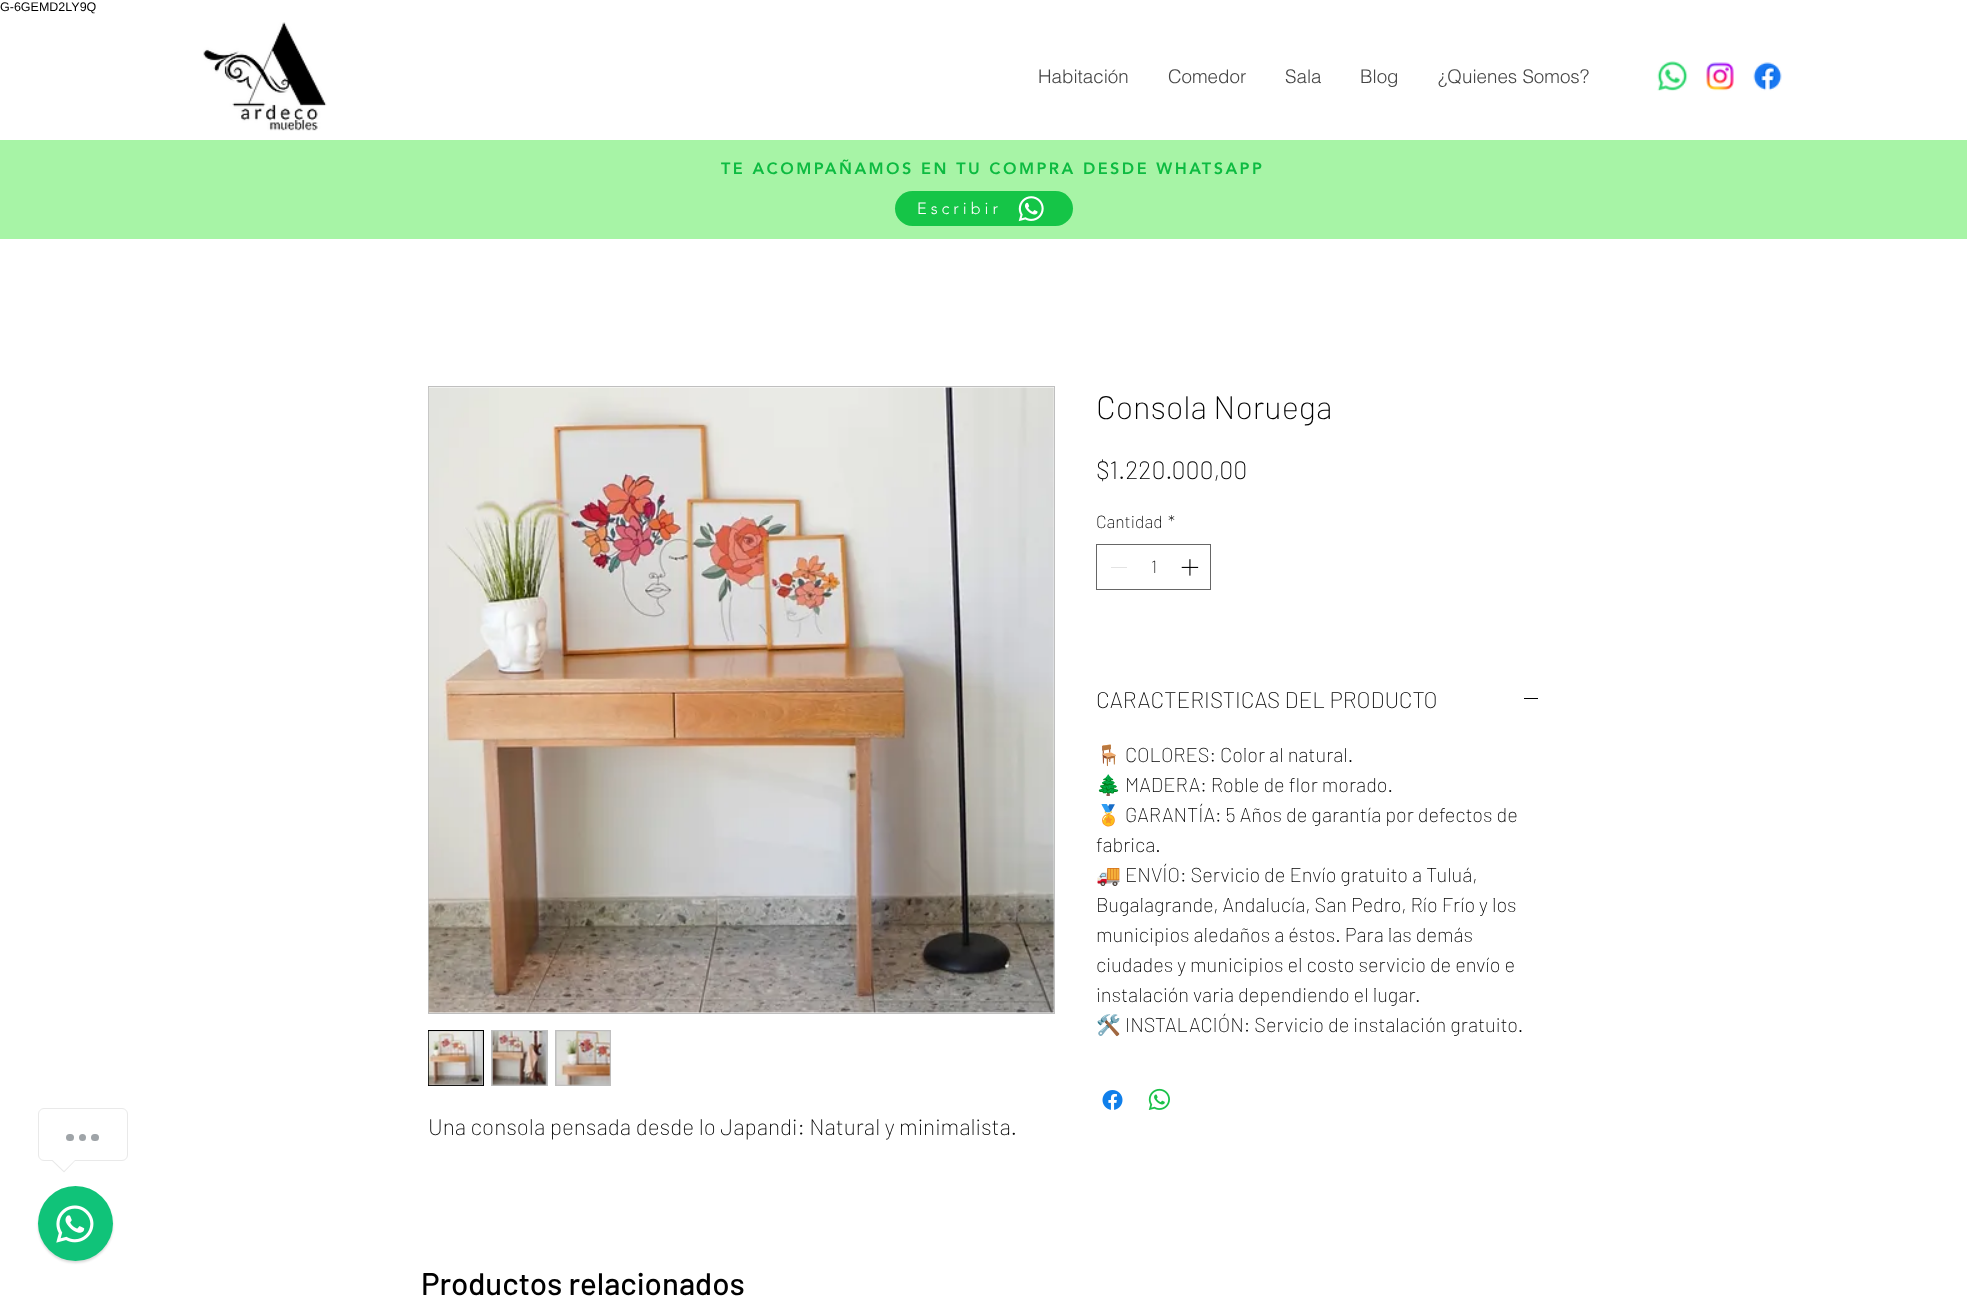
<svg xmlns="http://www.w3.org/2000/svg" xmlns:xlink="http://www.w3.org/1999/xlink" width="1967" height="1298" viewBox="0 0 1967 1298">
<style>
.cls-1{font:12.5px Liberation Sans;fill:#000000}
.cls-2{font:300 18.75px helvetica;fill:#444444}
.cls-3{font:900 16.25px 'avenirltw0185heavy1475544';letter-spacing:2.45px;fill:#0dbb41}
.cls-4{font:300 16.25px 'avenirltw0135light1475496';letter-spacing:4px;fill:#ffffff}
.cls-5{font:200 32.5px Barlow;fill:#000000}
.cls-6{font:200 25px Barlow;fill:#000000}
.cls-7{font:200 17.5px Barlow;fill:#000000}
.cls-8{font:200 22.5px Barlow;fill:#000000}
.cls-9{font:20px Noto Color Emoji;fill:#000000}
.cls-10{font:200 20px Barlow;fill:#000000}
.cls-11{font:500 31.25px Barlow;fill:#000000}
</style>
<rect width="100%" height="100%" fill="#ffffff"/>
<rect fill="none" stroke="#e9e9e9" x="38.5" y="1108.5" width="89" height="52" rx="5.5"/>
<rect fill="#9fa4a8" x="66" y="1134" width="8" height="7" rx="3.5"/>
<circle fill="#9fa4a8" cx="82.5" cy="1137.5" r="3.5"/>
<rect fill="#9fa4a8" x="91" y="1134" width="8" height="7" rx="3.5"/>
<path fill="#e9e9e9" d="M51 1160H76L64 1172.5Z"/>
<path fill="#ffffff" d="M52.5 1160H75L64 1171Z"/>
<rect fill="#000000" fill-opacity="0.15" filter="blur(1px)" x="38" y="1188" width="75" height="75" rx="37.5"/>
<circle fill="#10c379" cx="75.5" cy="1223.5" r="37.5"/>
<image xlink:href="image0.png" x="56" y="1205" width="38" height="38"/>
<image xlink:href="image1.png" x="203" y="22" width="124" height="109"/>
<image xlink:href="image2.png" x="1657" y="61" width="31" height="30"/>
<image xlink:href="image3.png" x="1706" y="62" width="28" height="29"/>
<image xlink:href="image4.png" x="1753" y="62" width="29" height="29"/>
<rect fill="#a7f4a6" x="0" y="140" width="1967" height="99"/>
<rect fill="#15c547" x="895" y="191" width="178" height="35" rx="17.5"/>
<image xlink:href="image5.png" x="1018" y="196" width="26" height="26"/>
<rect fill="none" stroke="#666666" x="1096.5" y="544.5" width="114" height="45"/>
<rect fill="#e3e3e3" x="1111" y="567" width="16" height="1"/>
<image xlink:href="image6.png" x="1181" y="559" width="18" height="17"/>
<rect fill="#000000" x="1524" y="698" width="14" height="1"/>
<image xlink:href="image7.png" x="1102" y="1090" width="21" height="20"/>
<image xlink:href="image8.png" x="1148" y="1088" width="22" height="22"/>
<rect fill="none" stroke="#bfbfbf" x="428.5" y="386.5" width="626" height="627"/>
<image xlink:href="image9.png" x="428" y="387" width="626" height="626"/>
<rect fill="#bfbfbf" stroke="#000000" x="428.5" y="1030.5" width="55" height="55"/>
<image xlink:href="image10.png" x="428" y="1031" width="55" height="55"/>
<rect fill="#bfbfbf" x="491" y="1030" width="57" height="56"/>
<image xlink:href="image11.png" x="492" y="1031" width="55" height="55"/>
<rect fill="#bfbfbf" x="555" y="1030" width="56" height="56"/>
<image xlink:href="image12.png" x="556" y="1031" width="55" height="55"/>
<text class="cls-1" x="0" y="11">G-6GEMD2LY9Q</text>
<text class="cls-2" x="1038" y="83">Habitación</text>
<text class="cls-2" x="1168" y="83">Comedor</text>
<text class="cls-2" x="1285" y="83">Sala</text>
<text class="cls-2" x="1360" y="83">Blog</text>
<text class="cls-2" x="1438" y="83">¿Quienes Somos?</text>
<text class="cls-3" x="721" y="174">TE ACOMPAÑAMOS EN TU COMPRA DESDE WHATSAPP</text>
<text class="cls-4" x="917" y="214">Escribir</text>
<text class="cls-5" x="1096" y="419">Consola Noruega</text>
<text class="cls-6" x="1096" y="479">$1.220.000,00</text>
<text class="cls-7" x="1096" y="528">Cantidad</text>
<text class="cls-7" x="1168" y="528">*</text>
<text class="cls-7" x="1151" y="573">1</text>
<text class="cls-8" x="1096" y="708">CARACTERISTICAS DEL PRODUCTO</text>
<text class="cls-9" x="1096" y="762">🪑</text>
<text class="cls-10" x="1125" y="762">COLORES: Color al natural.</text>
<text class="cls-9" x="1096" y="792">🌲</text>
<text class="cls-10" x="1125" y="792">MADERA: Roble de flor morado.</text>
<text class="cls-9" x="1096" y="822">🏅</text>
<text class="cls-10" x="1125" y="822">GARANTÍA: 5 Años de garantía por defectos de</text>
<text class="cls-10" x="1096" y="852">fabrica.</text>
<text class="cls-9" x="1096" y="882">🚚</text>
<text class="cls-10" x="1125" y="882">ENVÍO: Servicio de Envío gratuito a Tuluá,</text>
<text class="cls-10"><tspan x="1096" y="912">Bugalagrande, Andalucía, San Pedro, Río Frío y los</tspan><tspan x="1096" y="942">municipios aledaños a éstos. Para las demás</tspan><tspan x="1096" y="972">ciudades y municipios el costo servicio de envío e</tspan><tspan x="1096" y="1002">instalación varia dependiendo el lugar.</tspan></text>
<text class="cls-9" x="1096" y="1032">🛠️</text>
<text class="cls-10" x="1125" y="1032">INSTALACIÓN: Servicio de instalación gratuito.</text>
<text class="cls-8" x="428" y="1135">Una consola pensada desde lo Japandi: Natural y minimalista.</text>
<text class="cls-11" x="421" y="1295">Productos relacionados</text>
</svg>
